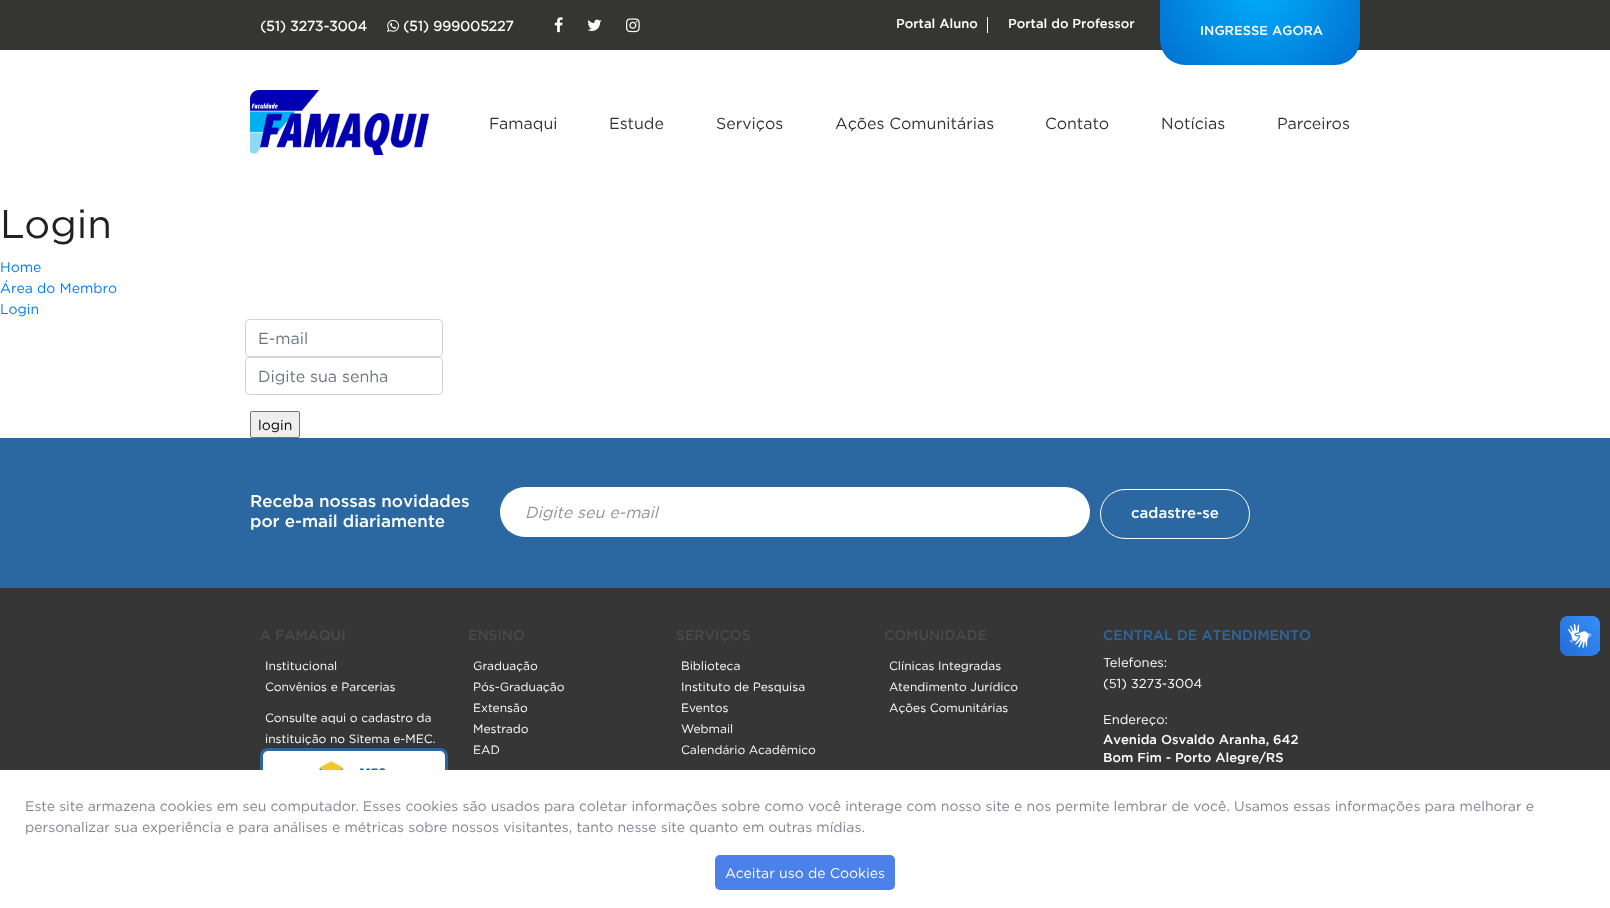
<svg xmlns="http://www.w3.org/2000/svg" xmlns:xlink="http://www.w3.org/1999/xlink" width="1610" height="908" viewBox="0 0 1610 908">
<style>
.cls-1{font:bold 14px Gotham;fill:#ffffff}
.cls-2{font:500 13px Gotham;fill:#ffffff}
.cls-3{font:16px Gotham;fill:#333333}
.cls-4{font:40px Gotham;fill:#212121}
.cls-5{font:14px Gotham;fill:#007bff}
.cls-6{font:16px Gotham;fill:#6c757d}
.cls-7{font:14px Gotham;fill:#000000}
.cls-8{font:500 17px Gotham;fill:#ffffff}
.cls-9{font:italic 16px Gotham;fill:#949393}
.cls-10{font:500 15px Gotham;fill:#ffffff}
.cls-11{font:500 14px Gotham;fill:#4a4a4a}
.cls-12{font:12px Gotham;fill:#ffffff}
.cls-13{font:500 14px Gotham;fill:#2b68a2}
.cls-14{font:13px Gotham;fill:#ffffff}
.cls-15{font:14px Gotham;fill:#838391}
.cls-16{font:14px Gotham;fill:#ffffff}
</style>
<defs>
<radialGradient id="g1" gradientUnits="userSpaceOnUse" cx="1260" cy="-10" r="125"><stop offset="0" stop-color="#00adfb"/><stop offset="1" stop-color="#026fcf"/></radialGradient>
</defs>
<rect width="100%" height="100%" fill="#ffffff"/>
<rect fill="#353533" x="0" y="0" width="1610" height="50"/>
<image xlink:href="image0.png" x="387" y="20" width="12" height="12"/>
<image xlink:href="image1.png" x="554" y="17" width="9" height="16"/>
<image xlink:href="image2.png" x="587" y="19" width="15" height="12"/>
<image xlink:href="image3.png" x="626" y="18" width="14" height="15"/>
<rect fill="#ffffff" x="987" y="17" width="1" height="16"/>
<rect fill="url(#g1)" x="1160" y="-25" width="200" height="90" rx="25"/>
<image xlink:href="image4.png" x="250" y="90" width="179" height="65"/>
<rect fill="none" stroke="#ced4da" x="245.5" y="319.5" width="197" height="37" rx="3.5"/>
<rect fill="none" stroke="#ced4da" x="245.5" y="357.5" width="197" height="37" rx="3.5"/>
<rect fill="#efefef" stroke="#767676" x="250.5" y="411.5" width="49" height="26" rx="1.5"/>
<rect fill="#2b68a2" x="0" y="438" width="1610" height="150"/>
<rect fill="#ffffff" x="500" y="487" width="590" height="50" rx="25"/>
<rect fill="none" stroke="#ffffff" x="1100.5" y="489.5" width="149" height="49" rx="24.5"/>
<rect fill="#363636" x="0" y="588" width="1610" height="182"/>
<rect fill="#ffffff" stroke="#2b68a2" stroke-width="3" x="261.5" y="749.5" width="185" height="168" rx="6.5"/>
<image xlink:href="image5.png" x="319" y="761" width="67" height="9"/>
<image xlink:href="image6.png" x="1560" y="616" width="40" height="40"/>
<image xlink:href="image7.png" x="1560" y="616" width="40" height="40"/>
<rect fill="#ffffff" x="260" y="770" width="188" height="138"/>
<rect fill="#4b81e8" x="715" y="855" width="180" height="35" rx="5"/>
<text class="cls-1" x="260" y="31">(51) 3273-3004</text>
<text class="cls-1" x="403" y="31">(51) 999005227</text>
<text class="cls-2" x="896" y="28">Portal Aluno</text>
<text class="cls-2" x="1008" y="28">Portal do Professor</text>
<text class="cls-2" x="1200" y="35">INGRESSE AGORA</text>
<text class="cls-3" x="489" y="129">Famaqui</text>
<text class="cls-3" x="609" y="129">Estude</text>
<text class="cls-3" x="716" y="129">Serviços</text>
<text class="cls-3" x="835" y="129">Ações Comunitárias</text>
<text class="cls-3" x="1045" y="129">Contato</text>
<text class="cls-3" x="1161" y="129">Notícias</text>
<text class="cls-3" x="1277" y="129">Parceiros</text>
<text class="cls-4" x="0" y="238">Login</text>
<text class="cls-5"><tspan x="0" y="272">Home</tspan><tspan x="0" y="293">Área do Membro</tspan><tspan x="0" y="314">Login</tspan></text>
<text class="cls-6" x="258" y="344">E-mail</text>
<text class="cls-6" x="258" y="382">Digite sua senha</text>
<text class="cls-7" x="258" y="430">login</text>
<text class="cls-8"><tspan x="250" y="507">Receba nossas novidades</tspan><tspan x="250" y="527">por e-mail diariamente</tspan></text>
<text class="cls-9" x="525" y="518">Digite seu e-mail</text>
<text class="cls-10" x="1131" y="518">cadastre-se</text>
<text class="cls-11" x="260" y="640">A FAMAQUI</text>
<text class="cls-12"><tspan x="265" y="670">Institucional</tspan><tspan x="265" y="691">Convênios e Parcerias</tspan></text>
<text class="cls-12"><tspan x="265" y="722">Consulte aqui o cadastro da</tspan><tspan x="265" y="743">instituição no Sitema e-MEC.</tspan></text>
<text class="cls-11" x="468" y="640">ENSINO</text>
<text class="cls-12"><tspan x="473" y="670">Graduação</tspan><tspan x="473" y="691">Pós-Graduação</tspan><tspan x="473" y="712">Extensão</tspan><tspan x="473" y="733">Mestrado</tspan><tspan x="473" y="754">EAD</tspan></text>
<text class="cls-11" x="676" y="640">SERVIÇOS</text>
<text class="cls-12"><tspan x="681" y="670">Biblioteca</tspan><tspan x="681" y="691">Instituto de Pesquisa</tspan><tspan x="681" y="712">Eventos</tspan><tspan x="681" y="733">Webmail</tspan><tspan x="681" y="754">Calendário Acadêmico</tspan></text>
<text class="cls-11" x="884" y="640">COMUNIDADE</text>
<text class="cls-12"><tspan x="889" y="670">Clínicas Integradas</tspan><tspan x="889" y="691">Atendimento Jurídico</tspan><tspan x="889" y="712">Ações Comunitárias</tspan></text>
<text class="cls-13" x="1103" y="640">CENTRAL DE ATENDIMENTO</text>
<text class="cls-14"><tspan x="1103" y="667">Telefones:</tspan><tspan x="1103" y="688">(51) 3273-3004</tspan></text>
<text class="cls-14" x="1103" y="724">Endereço:</text>
<text class="cls-2"><tspan x="1103" y="744">Avenida Osvaldo Aranha, 642</tspan><tspan x="1103" y="762">Bom Fim - Porto Alegre/RS</tspan></text>
<text class="cls-15"><tspan x="25" y="811">Este site armazena cookies em seu computador. Esses cookies são usados para coletar informações sobre como você interage com nosso site e nos permite lembrar de você. Usamos essas informações para melhorar e</tspan><tspan x="25" y="832">personalizar sua experiência e para análises e métricas sobre nossos visitantes, tanto nesse site quanto em outras mídias.</tspan></text>
<text class="cls-16" x="725" y="878">Aceitar uso de Cookies</text>
</svg>
